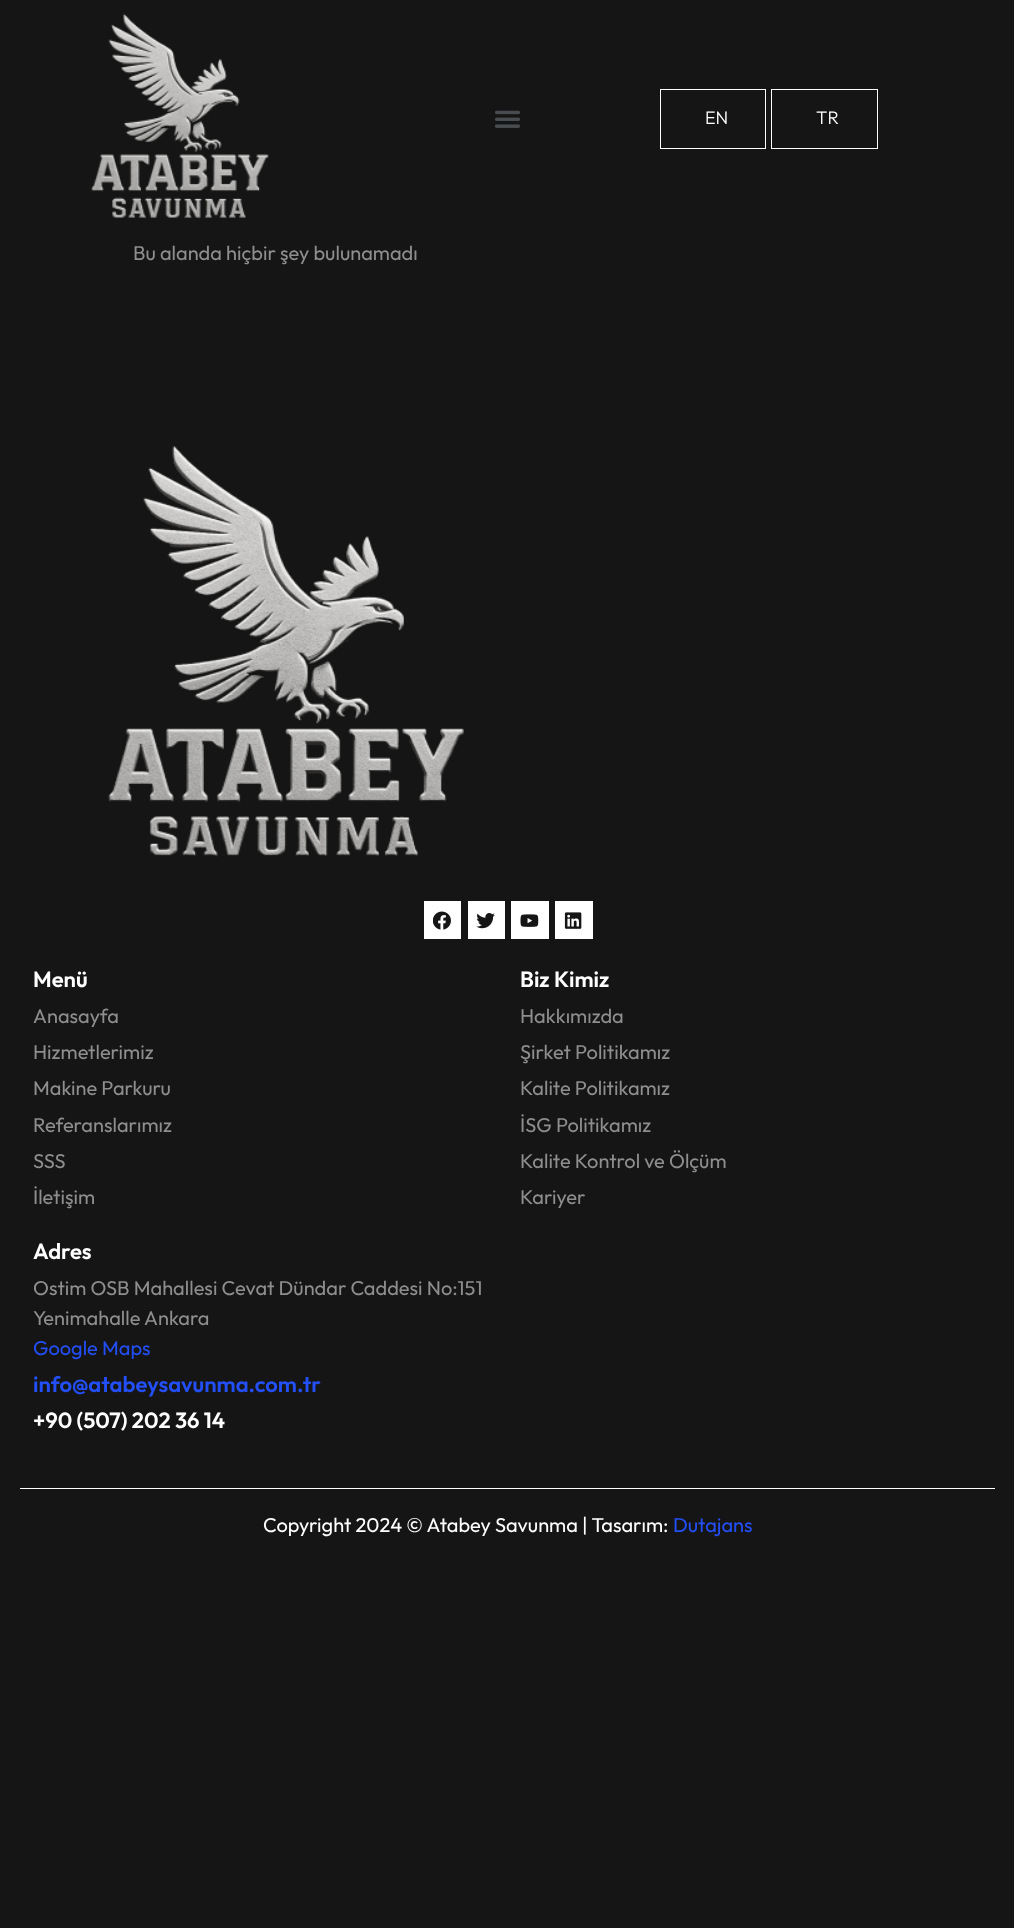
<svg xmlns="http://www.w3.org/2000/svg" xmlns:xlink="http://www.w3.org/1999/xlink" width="1014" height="1928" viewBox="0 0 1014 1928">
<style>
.cls-1{font:300 18px Outfit;fill:#ffffff}
.cls-2{font:20px Outfit;fill:#8e8e8e}
.cls-3{font:600 22px Outfit;fill:#ffffff}
.cls-4{font:20px Outfit;fill:#234ff6}
.cls-5{font:600 22px Outfit;fill:#234ff6}
.cls-6{font:20px Outfit;fill:#ffffff}
</style>
<rect width="100%" height="100%" fill="#151515"/>
<image xlink:href="image0.png" x="91" y="13" width="178" height="206"/>
<image xlink:href="image1.png" x="495" y="110" width="25" height="18"/>
<rect fill="none" stroke="#ffffff" x="660.5" y="89.5" width="105" height="59"/>
<rect fill="none" stroke="#ffffff" x="771.5" y="89.5" width="106" height="59"/>
<rect fill="#ffffff" x="20" y="1488" width="975" height="1"/>
<image xlink:href="image2.png" x="108" y="420" width="409" height="437"/>
<rect fill="#ffffff" x="424" y="901" width="37" height="38"/>
<image xlink:href="image3.png" x="433" y="911" width="18" height="19"/>
<rect fill="#ffffff" x="468" y="901" width="37" height="38"/>
<image xlink:href="image4.png" x="476" y="913" width="19" height="16"/>
<rect fill="#ffffff" x="511" y="901" width="38" height="38"/>
<image xlink:href="image5.png" x="520" y="914" width="19" height="13"/>
<rect fill="#ffffff" x="555" y="901" width="38" height="38"/>
<image xlink:href="image6.png" x="564" y="912" width="18" height="17"/>
<text class="cls-1" x="705" y="124">EN</text>
<text class="cls-1" x="816" y="124">TR</text>
<text class="cls-2" x="133" y="260">Bu alanda hiçbir şey bulunamadı</text>
<text class="cls-3" x="33" y="987">Menü</text>
<text class="cls-2"><tspan x="33" y="1023">Anasayfa</tspan><tspan x="33" y="1059">Hizmetlerimiz</tspan><tspan x="33" y="1095">Makine Parkuru</tspan><tspan x="33" y="1132">Referanslarımız</tspan><tspan x="33" y="1168">SSS</tspan><tspan x="33" y="1204">İletişim</tspan></text>
<text class="cls-3" x="520" y="987">Biz Kimiz</text>
<text class="cls-2"><tspan x="520" y="1023">Hakkımızda</tspan><tspan x="520" y="1059">Şirket Politikamız</tspan><tspan x="520" y="1095">Kalite Politikamız</tspan><tspan x="520" y="1132">İSG Politikamız</tspan><tspan x="520" y="1168">Kalite Kontrol ve Ölçüm</tspan><tspan x="520" y="1204">Kariyer</tspan></text>
<text class="cls-3" x="33" y="1259">Adres</text>
<text class="cls-2"><tspan x="33" y="1295">Ostim OSB Mahallesi Cevat Dündar Caddesi No:151</tspan><tspan x="33" y="1325">Yenimahalle Ankara</tspan></text>
<text class="cls-4" x="33" y="1355">Google Maps</text>
<text class="cls-5" x="33" y="1392">info@atabeysavunma.com.tr</text>
<text class="cls-3" x="33" y="1428">+90 (507) 202 36 14</text>
<text class="cls-6" x="263" y="1532">Copyright 2024 © Atabey Savunma | Tasarım:</text>
<text class="cls-4" x="673" y="1532">Dutajans</text>
</svg>
